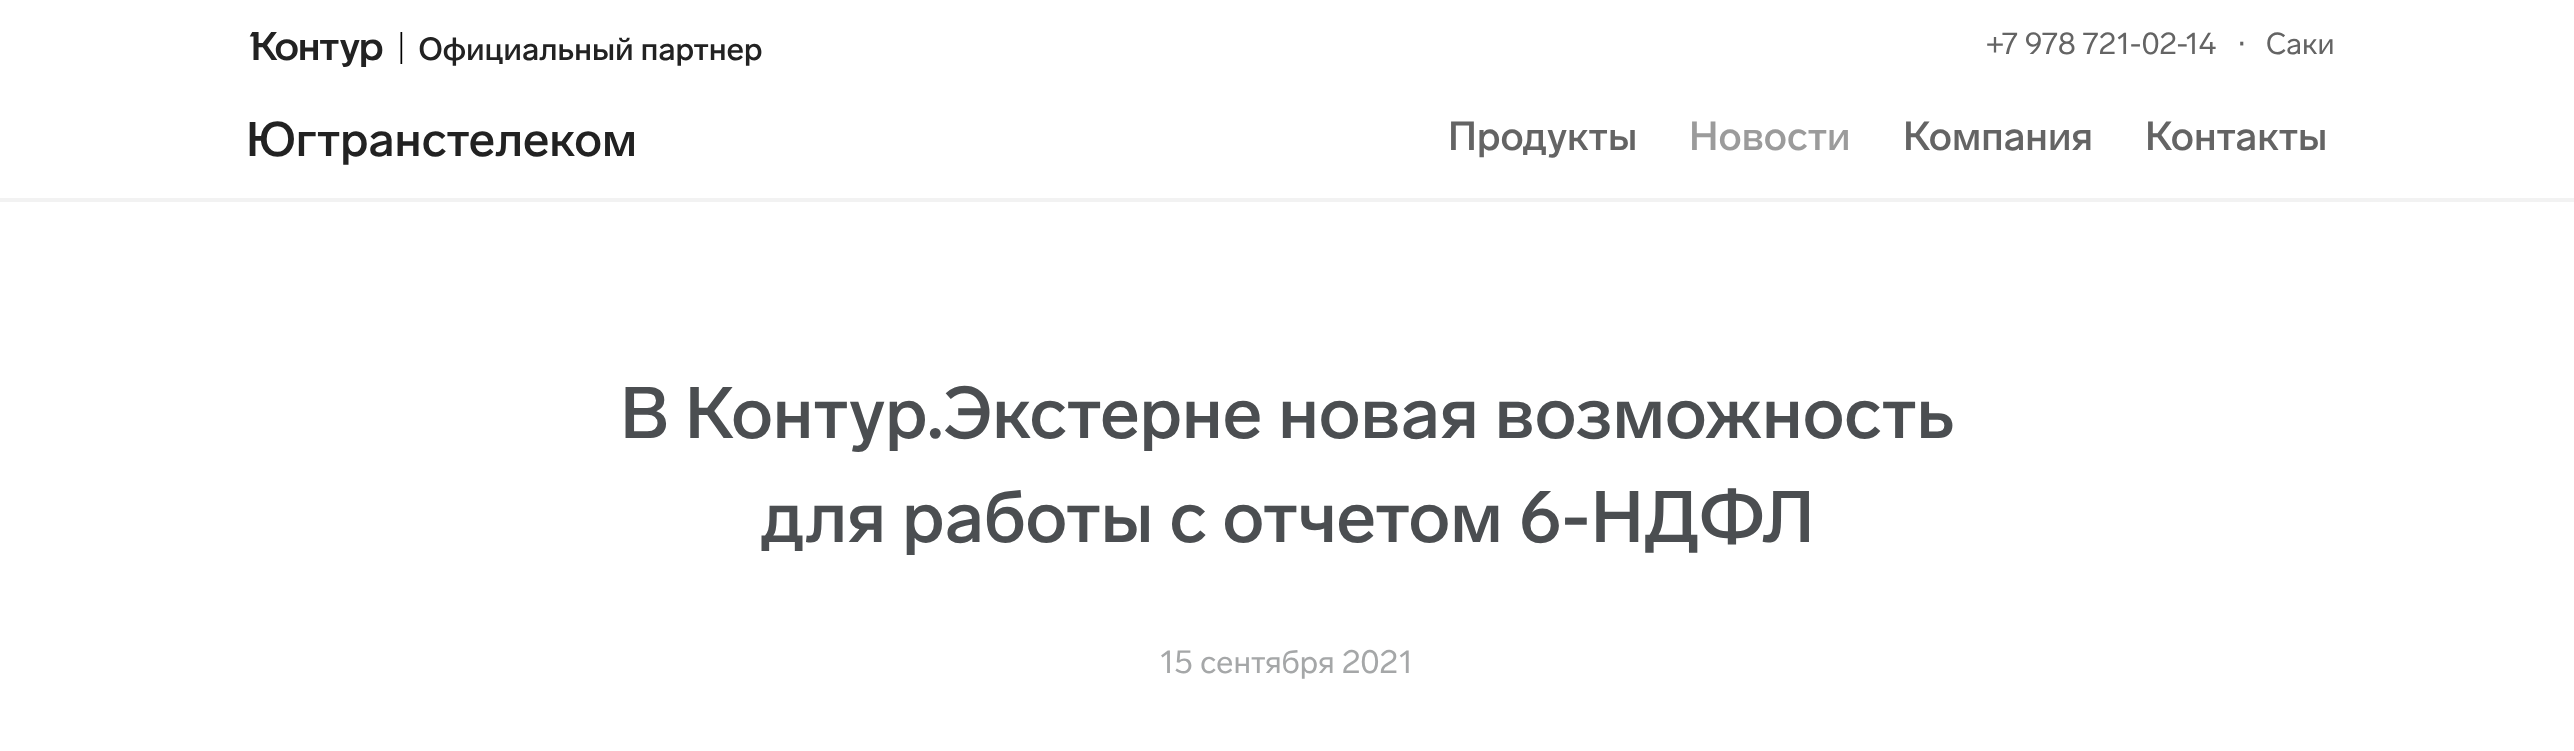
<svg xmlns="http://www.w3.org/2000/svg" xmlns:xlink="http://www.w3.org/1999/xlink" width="2574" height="751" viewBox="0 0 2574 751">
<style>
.cls-1{font:500 48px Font;fill:#222222}
.cls-2{font:30px Font;fill:#646464}
.cls-3{font:30px DejaVu Sans;fill:#646464}
.cls-4{font:500 40px Font;fill:#646464}
.cls-5{font:500 40px Font;fill:#9b9b9b}
.cls-6{font:500 72px Font;fill:#4b4e51}
.cls-7{font:32px Font;fill:#a5a7a8}
</style>
<rect width="100%" height="100%" fill="#ffffff"/>
<rect fill="#f2f2f2" x="0" y="198" width="2574" height="4"/>
<image xlink:href="image0.png" x="249" y="32" width="513" height="35"/>
<text class="cls-1" x="246" y="156">Югтранстелеком</text>
<text class="cls-2" x="1986" y="54">+7 978 721-02-14</text>
<text class="cls-3" x="2237" y="54">⋅</text>
<text class="cls-2" x="2266" y="54">Саки</text>
<text class="cls-4" x="1448" y="150">Продукты</text>
<text class="cls-5" x="1689" y="150">Новости</text>
<text class="cls-4" x="1903" y="150">Компания</text>
<text class="cls-4" x="2145" y="150">Контакты</text>
<text class="cls-6" x="620" y="438">В Контур.Экстерне новая возможность</text>
<text class="cls-6" x="760" y="542">для работы с отчетом 6-НДФЛ</text>
<text class="cls-7" x="1160" y="673">15 сентября 2021</text>
</svg>
